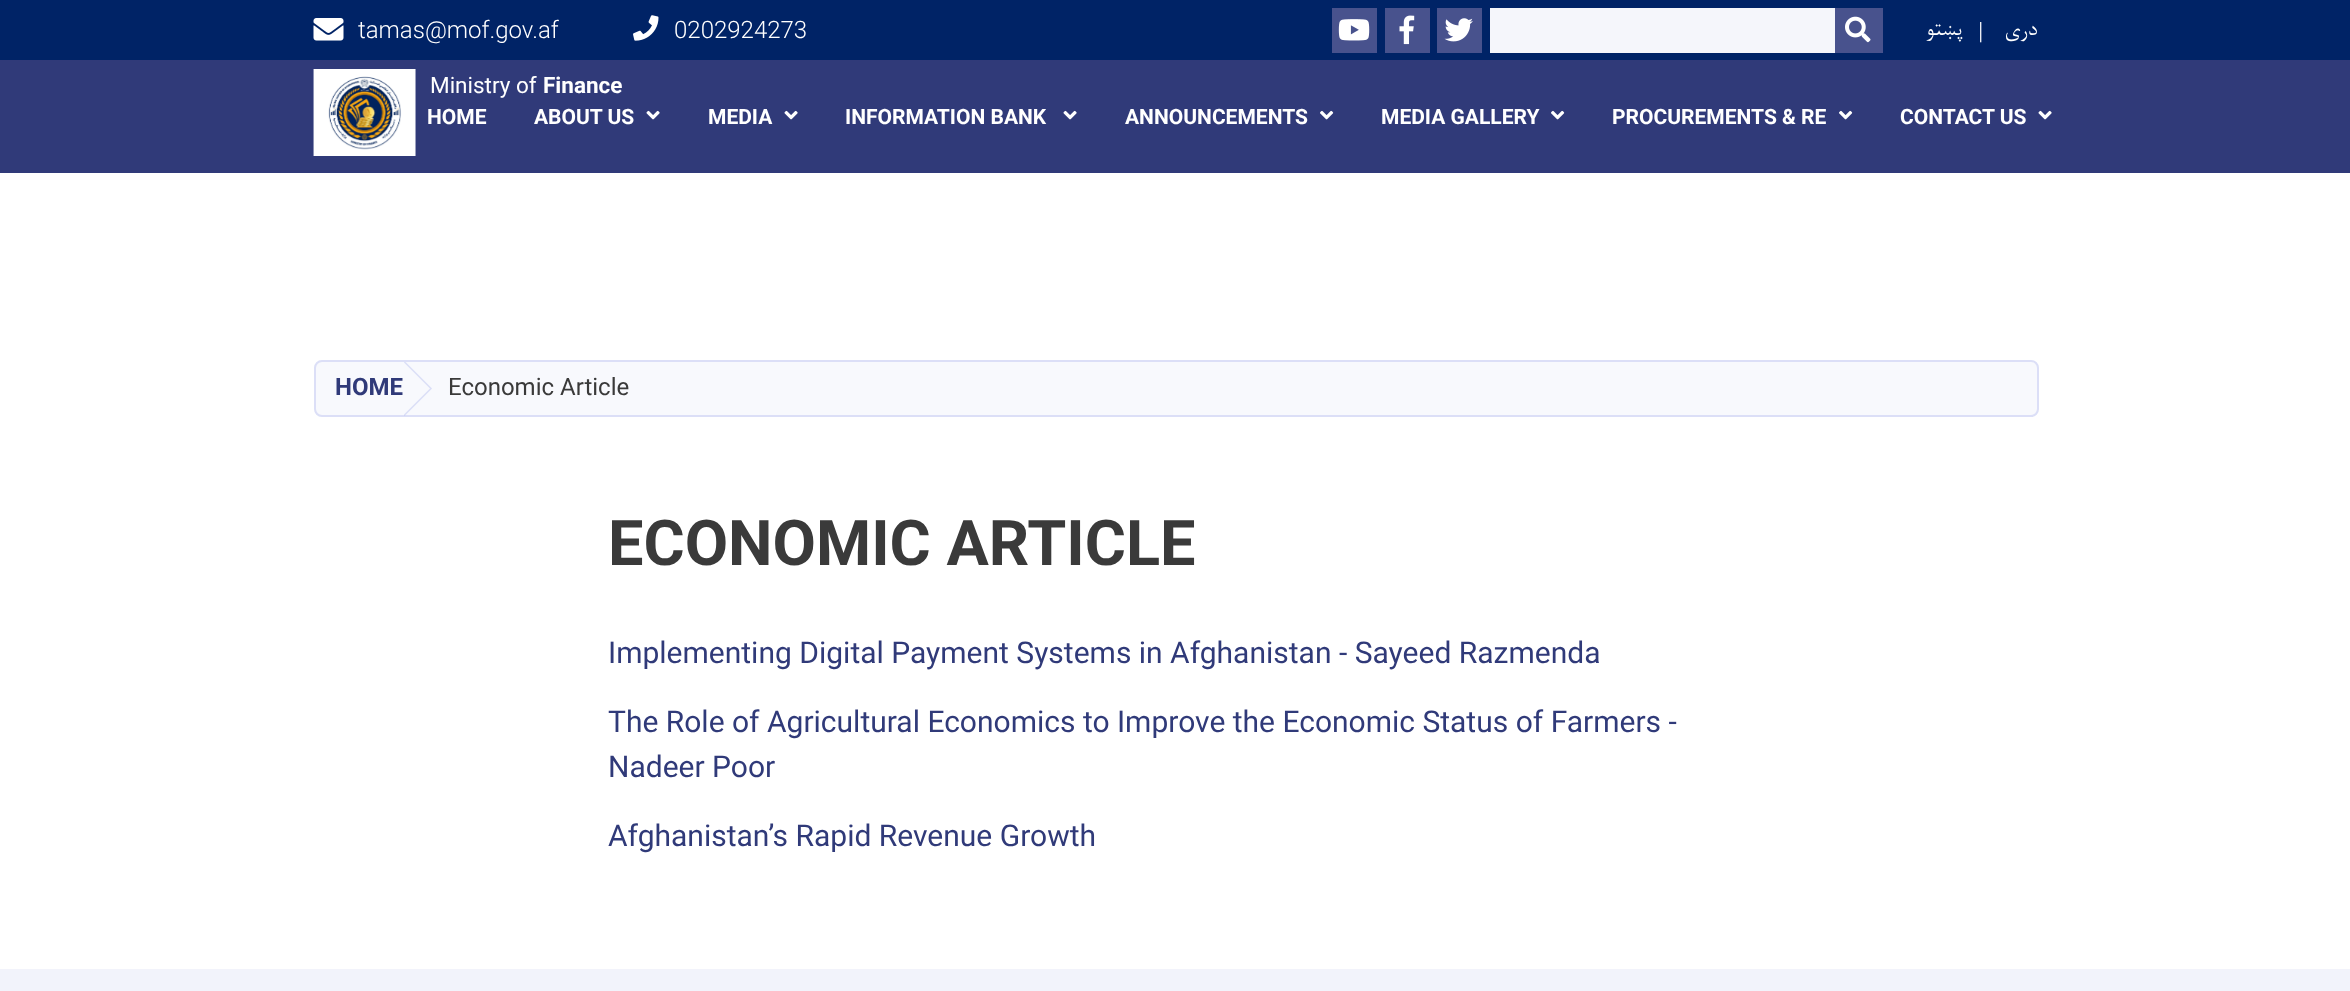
<svg xmlns="http://www.w3.org/2000/svg" xmlns:xlink="http://www.w3.org/1999/xlink" width="2350" height="991" viewBox="0 0 2350 991">
<style>
.cls-1{font:300 24px Roboto;fill:#ffffff}
.cls-2{font:24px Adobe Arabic;direction:rtl;fill:#ffffff}
.cls-3{font:bold 21px Roboto;fill:#ffffff}
.cls-4{font:22.5px Roboto;fill:#ffffff}
.cls-5{font:bold 22.5px Roboto;fill:#ffffff}
.cls-6{font:bold 24px Roboto;fill:#303a79}
.cls-7{font:24px Roboto;fill:#3a3a3a}
.cls-8{font:bold 63px Roboto;fill:#3a3a3a}
.cls-9{font:30px Roboto;fill:#303a79}
</style>
<defs>
<clipPath id="clip1"><rect x="404" y="362" width="241" height="54"/></clipPath>
</defs>
<rect width="100%" height="100%" fill="#ffffff"/>
<rect fill="#303a79" x="0" y="60" width="2350" height="113"/>
<rect fill="#002366" x="0" y="0" width="2350" height="60"/>
<image xlink:href="image0.png" x="313" y="18" width="31" height="23"/>
<image xlink:href="image1.png" x="633" y="15" width="26" height="26"/>
<rect fill="#48528d" x="1332" y="8" width="45" height="45"/>
<image xlink:href="image2.png" x="1338" y="19" width="32" height="22"/>
<rect fill="#48528d" x="1385" y="8" width="45" height="45"/>
<image xlink:href="image3.png" x="1399" y="15" width="16" height="30"/>
<rect fill="#48528d" x="1437" y="8" width="45" height="45"/>
<image xlink:href="image4.png" x="1444" y="18" width="29" height="24"/>
<rect fill="#f5f6fb" x="1490" y="8" width="345" height="45"/>
<rect fill="#48528d" x="1835" y="8" width="48" height="45"/>
<image xlink:href="image5.png" x="1845" y="16" width="26" height="27"/>
<image xlink:href="image6.png" x="646" y="110" width="14" height="10"/>
<image xlink:href="image6.png" x="784" y="110" width="14" height="10"/>
<image xlink:href="image6.png" x="1063" y="110" width="14" height="10"/>
<image xlink:href="image7.png" x="1320" y="110" width="14" height="10"/>
<image xlink:href="image7.png" x="1551" y="110" width="14" height="10"/>
<image xlink:href="image7.png" x="1839" y="110" width="14" height="10"/>
<image xlink:href="image6.png" x="2038" y="110" width="14" height="10"/>
<image xlink:href="image8.png" x="313" y="69" width="103" height="87"/>
<rect fill="#f8f9fd" x="314" y="360" width="1725" height="57" rx="8"/>
<rect fill="none" stroke="#bfc6f2" stroke-opacity="0.5" stroke-width="2" x="315" y="361" width="1723" height="55" rx="7"/>
<g clip-path="url(#clip1)">
<path fill="none" stroke="#bfc6f2" stroke-opacity="0.5" stroke-width="1.5" d="M384.5 342L431 388.5L384.5 435L338 388.5Z"/>
</g>
<rect fill="#f2f3fb" x="0" y="969" width="2350" height="22"/>
<text class="cls-1" x="358" y="38">tamas@mof.gov.af</text>
<text class="cls-1" x="674" y="38">0202924273</text>
<text class="cls-2" x="1963" y="35">پښتو</text>
<text class="cls-1" x="1978" y="39">|</text>
<text class="cls-2" x="2038" y="35">دری</text>
<text class="cls-3" x="427" y="124">HOME</text>
<text class="cls-3" x="534" y="124">ABOUT US</text>
<text class="cls-3" x="708" y="124">MEDIA</text>
<text class="cls-3" x="845" y="124">INFORMATION BANK</text>
<text class="cls-3" x="1125" y="124">ANNOUNCEMENTS</text>
<text class="cls-3" x="1381" y="124">MEDIA GALLERY</text>
<text class="cls-3" x="1612" y="124">PROCUREMENTS &amp; RE</text>
<text class="cls-3" x="1900" y="124">CONTACT US</text>
<text class="cls-4" x="430" y="93">Ministry of</text>
<text class="cls-5" x="543" y="93">Finance</text>
<text class="cls-6" x="335" y="395">HOME</text>
<text class="cls-7" x="448" y="395">Economic Article</text>
<text class="cls-8" x="608" y="565">ECONOMIC ARTICLE</text>
<text class="cls-9" x="608" y="663">Implementing Digital Payment Systems in Afghanistan - Sayeed Razmenda</text>
<text class="cls-9"><tspan x="608" y="732">The Role of Agricultural Economics to Improve the Economic Status of Farmers -</tspan><tspan x="608" y="777">Nadeer Poor</tspan></text>
<text class="cls-9" x="608" y="846">Afghanistan’s Rapid Revenue Growth</text>
</svg>
